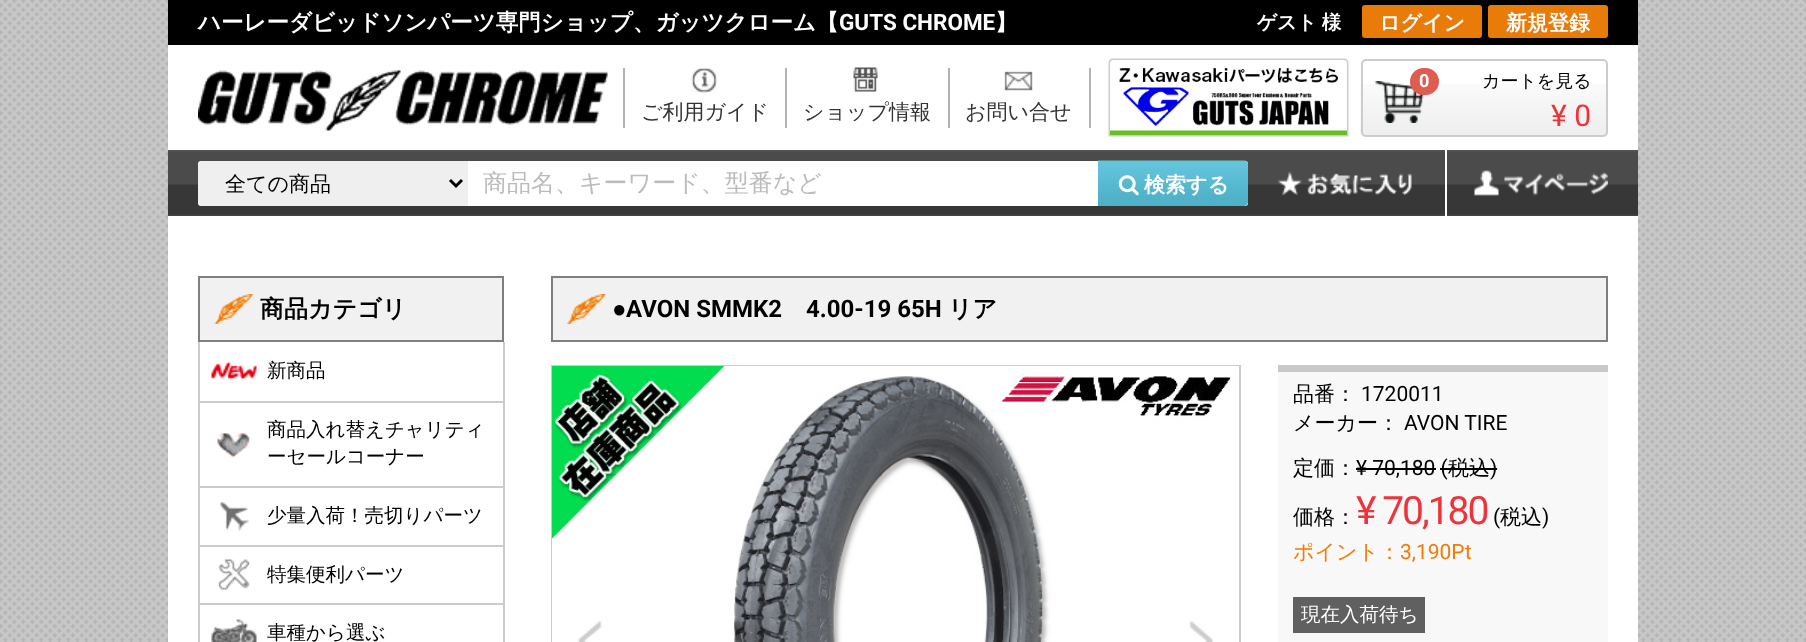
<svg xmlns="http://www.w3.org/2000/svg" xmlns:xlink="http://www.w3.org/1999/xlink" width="1806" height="642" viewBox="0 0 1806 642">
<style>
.cls-1{font:bold 22.5px WenQuanYi Zen Hei;fill:#ffffff}
.cls-2{font:bold 22.5px Roboto;fill:#ffffff}
.cls-3{font:bold 19.5px WenQuanYi Zen Hei;fill:#ffffff}
.cls-4{font:bold 21px WenQuanYi Zen Hei;fill:#ffffff}
.cls-5{font:500 21px WenQuanYi Zen Hei;fill:#333333}
.cls-6{font:bold 18px Roboto;fill:#ffffff}
.cls-7{font:500 18px WenQuanYi Zen Hei;fill:#000000}
.cls-8{font:30px Roboto;fill:#ed343b}
.cls-9{font:500 21px WenQuanYi Zen Hei;fill:#000000}
.cls-10{font:500 24px WenQuanYi Zen Hei;fill:#bbbbbb}
.cls-11{font:bold 24px WenQuanYi Zen Hei;fill:#000000}
.cls-12{font:500 19.5px WenQuanYi Zen Hei;fill:#000000}
.cls-13{font:bold 24px Liberation Sans;fill:#000000}
.cls-14{font:bold 24px Roboto;fill:#000000}
.cls-15{font:21px Roboto;fill:#000000}
.cls-16{font:39px Roboto;letter-spacing:-2px;fill:#ed343b}
.cls-17{font:500 21px WenQuanYi Zen Hei;fill:#f07b06}
.cls-18{font:21px Roboto;fill:#f07b06}
.cls-19{font:500 19.5px WenQuanYi Zen Hei;fill:#ffffff}
</style>
<rect width="100%" height="100%" fill="#ffffff"/>
<image xlink:href="image0.png" x="0" y="0" width="1806" height="642"/>
<rect fill="#000000" x="168" y="0" width="1470" height="45"/>
<rect fill="#e97b09" stroke="#e97b09" stroke-width="2" x="1363" y="6" width="118" height="31" rx="2"/>
<rect fill="#e97b09" stroke="#e97b09" stroke-width="2" x="1489" y="6" width="118" height="31" rx="2"/>
<rect fill="#ffffff" x="168" y="45" width="1470" height="597"/>
<image xlink:href="image1.png" x="198" y="70" width="410" height="61"/>
<rect fill="#b2b2b2" x="623" y="68" width="2" height="60"/>
<image xlink:href="image2.png" x="691" y="67" width="27" height="26"/>
<rect fill="#b2b2b2" x="785" y="68" width="2" height="60"/>
<image xlink:href="image3.png" x="853" y="67" width="25" height="25"/>
<rect fill="#b2b2b2" x="948" y="68" width="2" height="60"/>
<image xlink:href="image4.png" x="1004" y="71" width="29" height="20"/>
<rect fill="#b2b2b2" x="1089" y="68" width="2" height="60"/>
<image xlink:href="image5.png" x="1108" y="58" width="241" height="79"/>
<image xlink:href="image6.png" x="1360" y="84" width="248" height="53"/>
<rect fill="none" stroke="#cccccc" stroke-width="2" x="1362" y="60" width="245" height="76" rx="4"/>
<image xlink:href="image7.png" x="1375" y="81" width="49" height="42"/>
<rect fill="#de5d50" x="1410" y="68" width="29" height="27" rx="13.5"/>
<rect fill="#444444" x="168" y="215" width="1470" height="1"/>
<image xlink:href="image8.png" x="168" y="150" width="1470" height="65"/>
<rect fill="#ffffff" x="198" y="161" width="1050" height="45" rx="3"/>
<path fill="#efefef" d="M203 161H468V206H203C200 206 198 204 198 201V166C198 163 200 161 203 161Z"/>
<path fill="none" stroke="#000000" stroke-width="3" d="M450 180L456 186L462 180"/>
<path fill="#4db0c6" d="M1098 161H1243C1246 161 1248 163 1248 166V201C1248 204 1246 206 1243 206H1098Z"/>
<image xlink:href="image9.png" x="1098" y="160" width="150" height="46"/>
<image xlink:href="image10.png" x="1118" y="175" width="21" height="21"/>
<image xlink:href="image11.png" x="1278" y="171" width="134" height="24"/>
<rect fill="#ffffff" x="1445" y="150" width="2" height="66"/>
<image xlink:href="image12.png" x="1474" y="170" width="134" height="26"/>
<rect fill="#f1f1f1" x="200" y="278" width="302" height="62"/>
<image xlink:href="image13.png" x="214" y="294" width="40" height="30"/>
<rect fill="none" stroke="#7f7f7f" stroke-width="2" x="199" y="277" width="304" height="64"/>
<rect fill="#cbcbcb" x="503" y="342" width="2" height="300"/>
<rect fill="#cbcbcb" x="198" y="342" width="2" height="300"/>
<image xlink:href="image14.png" x="211" y="361" width="46" height="19"/>
<rect fill="#cbcbcb" x="200" y="401" width="303" height="2"/>
<image xlink:href="image15.png" x="217" y="433" width="33" height="25"/>
<rect fill="#cbcbcb" x="200" y="486" width="303" height="2"/>
<image xlink:href="image16.png" x="220" y="502" width="30" height="29"/>
<rect fill="#cbcbcb" x="200" y="545" width="303" height="2"/>
<image xlink:href="image17.png" x="218" y="559" width="32" height="31"/>
<rect fill="#cbcbcb" x="200" y="603" width="303" height="2"/>
<image xlink:href="image18.png" x="211" y="619" width="46" height="23"/>
<rect fill="#f1f1f1" x="553" y="278" width="1053" height="62"/>
<image xlink:href="image19.png" x="567" y="294" width="39" height="30"/>
<rect fill="none" stroke="#7f7f7f" stroke-width="2" x="552" y="277" width="1055" height="64"/>
<rect fill="none" stroke="#cccccc" stroke-width="2" x="552" y="366" width="688" height="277"/>
<image xlink:href="image20.png" x="552" y="366" width="687" height="276"/>
<image xlink:href="image21.png" x="577" y="621" width="25" height="21"/>
<image xlink:href="image22.png" x="1189" y="621" width="25" height="21"/>
<rect fill="#f8f8f8" x="1278" y="372" width="330" height="270"/>
<rect fill="#c9c9c9" x="1278" y="365" width="330" height="7"/>
<rect fill="#000000" x="1356" y="468" width="80" height="2"/>
<rect fill="#000000" x="1440" y="468" width="57" height="2"/>
<image xlink:href="image23.png" x="1497" y="468" width="1" height="2"/>
<rect fill="#606060" x="1293" y="597" width="132" height="36"/>
<text class="cls-1" x="198" y="30">ハーレーダビッドソンパーツ専門ショップ、ガッツクローム【</text>
<text class="cls-2" x="839" y="30">GUTS CHROME</text>
<text class="cls-1" x="995" y="30">】</text>
<text class="cls-3" x="1257" y="29" word-spacing="-1">ゲスト 様</text>
<text class="cls-4" x="1379" y="30">ログイン</text>
<text class="cls-4" x="1506" y="30">新規登録</text>
<text class="cls-5" x="641" y="119">ご利用ガイド</text>
<text class="cls-5" x="803" y="119">ショップ情報</text>
<text class="cls-5" x="965" y="119">お問い合せ</text>
<text class="cls-6" x="1419" y="87">0</text>
<text class="cls-7" x="1482" y="87">カートを見る</text>
<text class="cls-8" x="1551" y="126">¥ 0</text>
<text class="cls-9" x="225" y="191">全ての商品</text>
<text class="cls-10" x="483" y="191">商品名、キーワード、型番など</text>
<text class="cls-4" x="1144" y="192">検索する</text>
<text class="cls-11" x="260" y="317">商品カテゴリ</text>
<text class="cls-12" x="267" y="377">新商品</text>
<text class="cls-12"><tspan x="267" y="436">商品入れ替えチャリティ</tspan><tspan x="267" y="463">ーセールコーナー</tspan></text>
<text class="cls-12" x="267" y="522">少量入荷！売切りパーツ</text>
<text class="cls-12" x="267" y="581">特集便利パーツ</text>
<text class="cls-12" x="267" y="639">車種から選ぶ</text>
<text class="cls-13" x="612" y="317">●</text>
<text class="cls-14" x="626" y="317">AVON SMMK2</text>
<text class="cls-14" x="806" y="317">4.00-19 65H</text>
<text class="cls-11" x="948" y="317">リア</text>
<text class="cls-9" x="1293" y="401">品番：</text>
<text class="cls-15" x="1361" y="401">1720011</text>
<text class="cls-9" x="1293" y="430">メーカー：</text>
<text class="cls-15" x="1404" y="430">AVON TIRE</text>
<text class="cls-9" x="1293" y="475">定価：</text>
<text class="cls-15" x="1356" y="475">¥ 70,180 (</text>
<text class="cls-9" x="1448" y="475">税込</text>
<text class="cls-15" x="1490" y="475">)</text>
<text class="cls-9" x="1293" y="524">価格：</text>
<text class="cls-16" x="1356" y="524">¥ 70,180</text>
<text class="cls-15" x="1493" y="524">(</text>
<text class="cls-9" x="1500" y="524">税込</text>
<text class="cls-15" x="1542" y="524">)</text>
<text class="cls-17" x="1293" y="559">ポイント：</text>
<text class="cls-18" x="1400" y="559">3,190Pt</text>
<text class="cls-19" x="1301" y="621">現在入荷待ち</text>
</svg>
